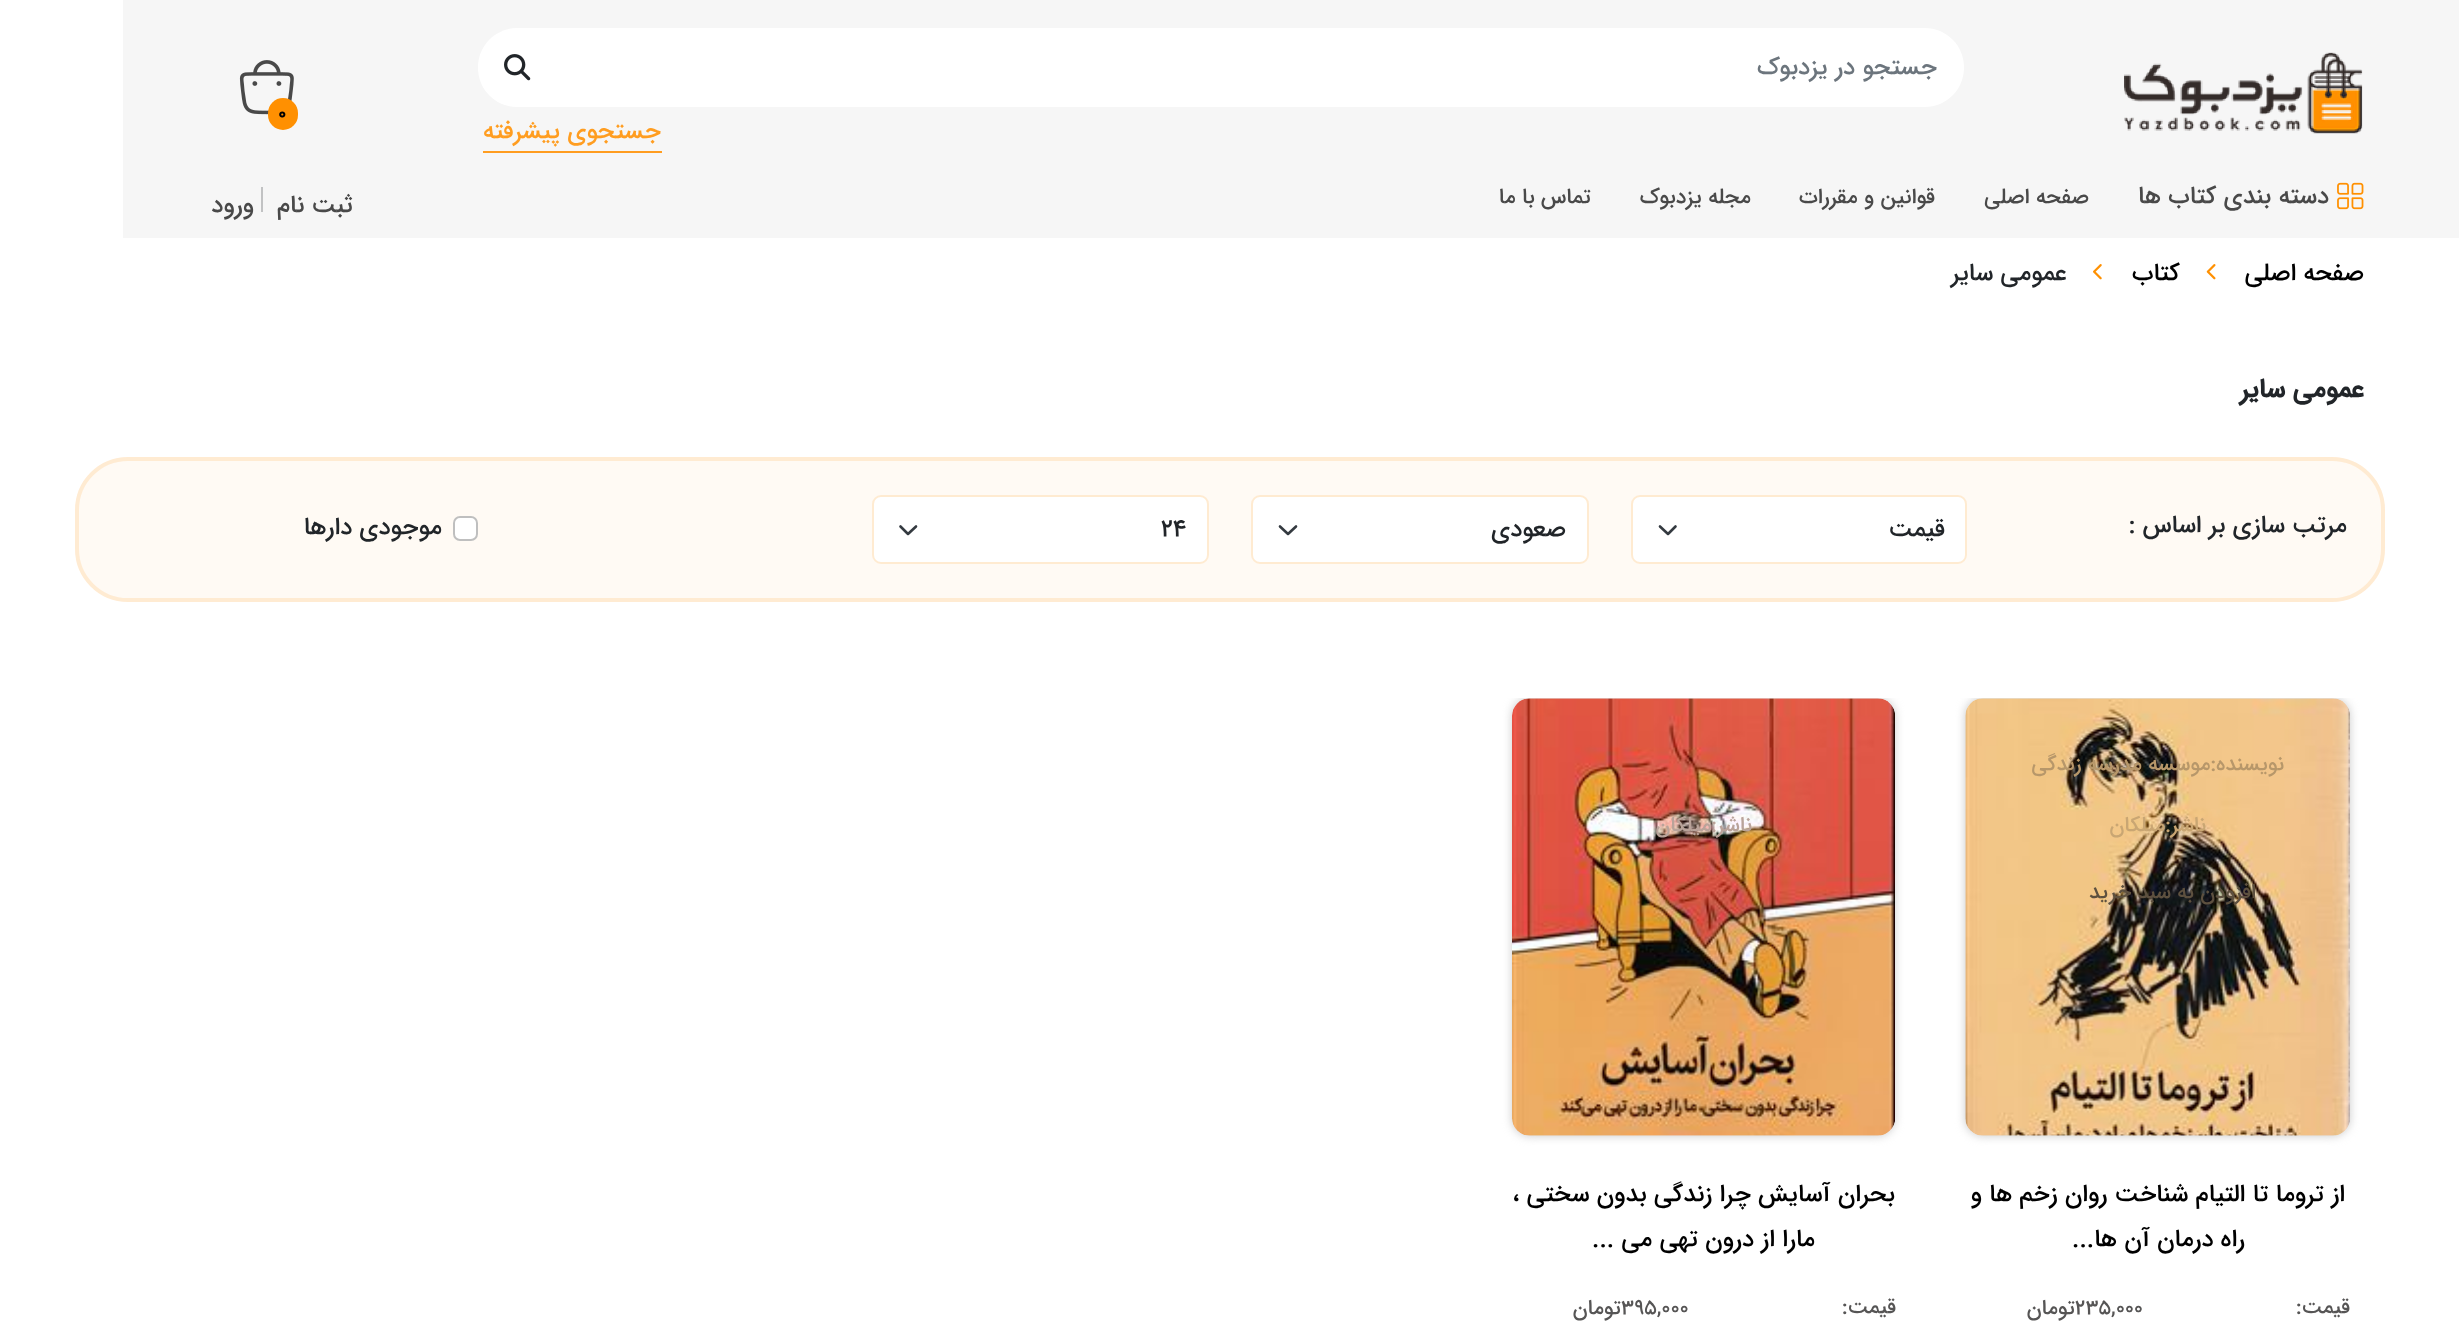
<svg xmlns="http://www.w3.org/2000/svg" xmlns:xlink="http://www.w3.org/1999/xlink" width="2459" height="1325" viewBox="0 0 2459 1325">
<style>
.cls-1{font:500 24.5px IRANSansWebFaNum;direction:rtl;fill:#6c757d}
.cls-2{font:500 24.5px IRANSansWebFaNum;direction:rtl;fill:#ff9d20}
.cls-3{font:bold 18px IRANSansWebFaNum;fill:#000000}
.cls-4{font:500 24.5px IRANSansWebFaNum;direction:rtl;fill:#494949}
.cls-5{font:500 21.5px IRANSansWebFaNum;direction:rtl;fill:#494949}
.cls-6{font:500 24.5px IRANSansWebFaNum;direction:rtl;fill:#000000}
.cls-7{font:500 24.5px IRANSansWebFaNum;direction:rtl;fill:#212529}
.cls-8{font:bold 26.25px IRANSansWebFaNum;direction:rtl;fill:#212529}
.cls-9{font:500 24.5px IRANSansWebFaNum;fill:#212529}
.cls-10{font:500 21px IRANSansWebFaNum;direction:rtl;fill:#b7976a}
.cls-11{font:500 21px IRANSansWebFaNum;direction:rtl;fill:#c9a673}
.cls-12{font:500 21px IRANSansWebFaNum;direction:rtl;fill:#5d503f}
.cls-13{font:500 21px IRANSansWebFaNum;direction:rtl;fill:#565555}
.cls-14{font:500 21px IRANSansWebFaNum;fill:#565555}
.cls-15{font:500 21px IRANSansWebFaNum;direction:rtl;fill:#b9a39a}
</style>
<defs>
<clipPath id="clip1"><rect x="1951" y="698" width="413" height="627"/></clipPath>
<clipPath id="clip2"><rect x="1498" y="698" width="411" height="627"/></clipPath>
</defs>
<rect width="100%" height="100%" fill="#ffffff"/>
<rect fill="#f6f6f6" x="123" y="0" width="2336" height="238"/>
<image xlink:href="image0.png" x="2124" y="52" width="239" height="82"/>
<path fill="#ffffff" d="M517 28H544V107H517C495.5 107 478 89.5 478 68V67C478 45.5 495.5 28 517 28Z"/>
<path fill="#ffffff" d="M543 28H1924.5C1946.5 28 1964 45.5 1964 67.5C1964 89.5 1946.5 107 1924.5 107H543Z"/>
<image xlink:href="image1.png" x="504" y="54" width="27" height="27"/>
<rect fill="#ff9d20" x="483" y="151" width="179" height="2"/>
<image xlink:href="image2.png" x="239" y="60" width="55" height="55"/>
<rect fill="#ff9001" x="268" y="98" width="30" height="32" rx="15"/>
<image xlink:href="image3.png" x="2337" y="182" width="27" height="28"/>
<rect fill="#c1c2c3" x="261" y="187" width="2" height="25"/>
<image xlink:href="image4.png" x="2206" y="264" width="10" height="16"/>
<image xlink:href="image5.png" x="2093" y="264" width="9" height="16"/>
<rect fill="#fffaf4" x="75" y="457" width="2310" height="145" rx="53"/>
<rect fill="none" stroke="#ffb85d" stroke-opacity="0.22" stroke-width="4" x="77" y="459" width="2306" height="141" rx="51"/>
<rect fill="#ffffff" x="1631" y="495" width="336" height="69" rx="9"/>
<path fill="none" stroke="#343a40" stroke-width="2.6" stroke-linecap="round" stroke-linejoin="round" d="M1660 526.5L1668 534L1675.5 526.5"/>
<rect fill="none" stroke="#ff9001" stroke-opacity="0.18" stroke-width="2" x="1632" y="496" width="334" height="67" rx="8"/>
<rect fill="#ffffff" x="1251" y="495" width="338" height="69" rx="9"/>
<path fill="none" stroke="#343a40" stroke-width="2.6" stroke-linecap="round" stroke-linejoin="round" d="M1280 526.5L1288 534L1296 526.5"/>
<rect fill="none" stroke="#ff9001" stroke-opacity="0.18" stroke-width="2" x="1252" y="496" width="336" height="67" rx="8"/>
<rect fill="#ffffff" x="872" y="495" width="337" height="69" rx="9"/>
<path fill="none" stroke="#343a40" stroke-width="2.6" stroke-linecap="round" stroke-linejoin="round" d="M900.5 526.5L908 534L916 526.5"/>
<rect fill="none" stroke="#ff9001" stroke-opacity="0.18" stroke-width="2" x="873" y="496" width="335" height="67" rx="8"/>
<rect fill="#ffffff" x="453" y="516" width="25" height="25" rx="7"/>
<rect fill="none" stroke="#000000" stroke-opacity="0.25" stroke-width="2" x="454" y="517" width="23" height="23" rx="6"/>
<g clip-path="url(#clip1)">
<rect fill="#cccccc" filter="blur(5px)" x="1965" y="698" width="385" height="438" rx="18"/>
</g>
<image xlink:href="image6.png" x="1965" y="698" width="385" height="438"/>
<g clip-path="url(#clip2)">
<rect fill="#cccccc" filter="blur(5px)" x="1512" y="698" width="383" height="438" rx="18"/>
</g>
<image xlink:href="image7.png" x="1512" y="698" width="383" height="438"/>
<text class="cls-1" x="1937" y="74">جستجو در یزدبوک</text>
<text class="cls-2" x="661" y="138">جستجوی پیشرفته</text>
<text class="cls-3" x="278" y="119">0</text>
<text class="cls-4" x="2329" y="203">دسته بندی کتاب ها</text>
<text class="cls-5" x="2089" y="203">صفحه اصلی</text>
<text class="cls-5" x="1935" y="203">قوانین و مقررات</text>
<text class="cls-5" x="1751" y="203">مجله یزدبوک</text>
<text class="cls-5" x="1591" y="203">تماس با ما</text>
<text class="cls-4" x="353" y="212">ثبت نام</text>
<text class="cls-4" x="254" y="212">ورود</text>
<text class="cls-6" x="2364" y="280">صفحه اصلی</text>
<text class="cls-6" x="2180" y="280">کتاب</text>
<text class="cls-7" x="2067" y="280">عمومی سایر</text>
<text class="cls-8" x="2364" y="397">عمومی سایر</text>
<text class="cls-7" x="2347" y="532">مرتب سازی بر اساس :</text>
<text class="cls-7" x="1945" y="536">قیمت</text>
<text class="cls-7" x="1566" y="536">صعودی</text>
<text class="cls-9" x="1161" y="536">24</text>
<text class="cls-7" x="442" y="534">موجودی دارها</text>
<text class="cls-10" x="2284" y="770">نویسنده:موسسه مدرسه زندگی</text>
<text class="cls-11" x="2206" y="831">ناشر:میلکان</text>
<text class="cls-12" x="2256" y="898">افزودن به سبد خرید</text>
<text class="cls-6" x="2345" y="1201">از تروما تا التیام شناخت روان زخم ها و</text>
<text class="cls-6" x="2245" y="1246">راه درمان آن ها...</text>
<text class="cls-13" x="2350" y="1313">قیمت:</text>
<text class="cls-14" x="2075" y="1314">235,000</text>
<text class="cls-13" x="2075" y="1314">تومان</text>
<text class="cls-15" x="1752" y="831">ناشر:میلکان</text>
<text class="cls-6" x="1895" y="1201">بحران آسایش چرا زندگی بدون سختی ،</text>
<text class="cls-6" x="1815" y="1246">مارا از درون تهی می ...</text>
<text class="cls-13" x="1896" y="1313">قیمت:</text>
<text class="cls-14" x="1621" y="1314">395,000</text>
<text class="cls-13" x="1621" y="1314">تومان</text>
</svg>
